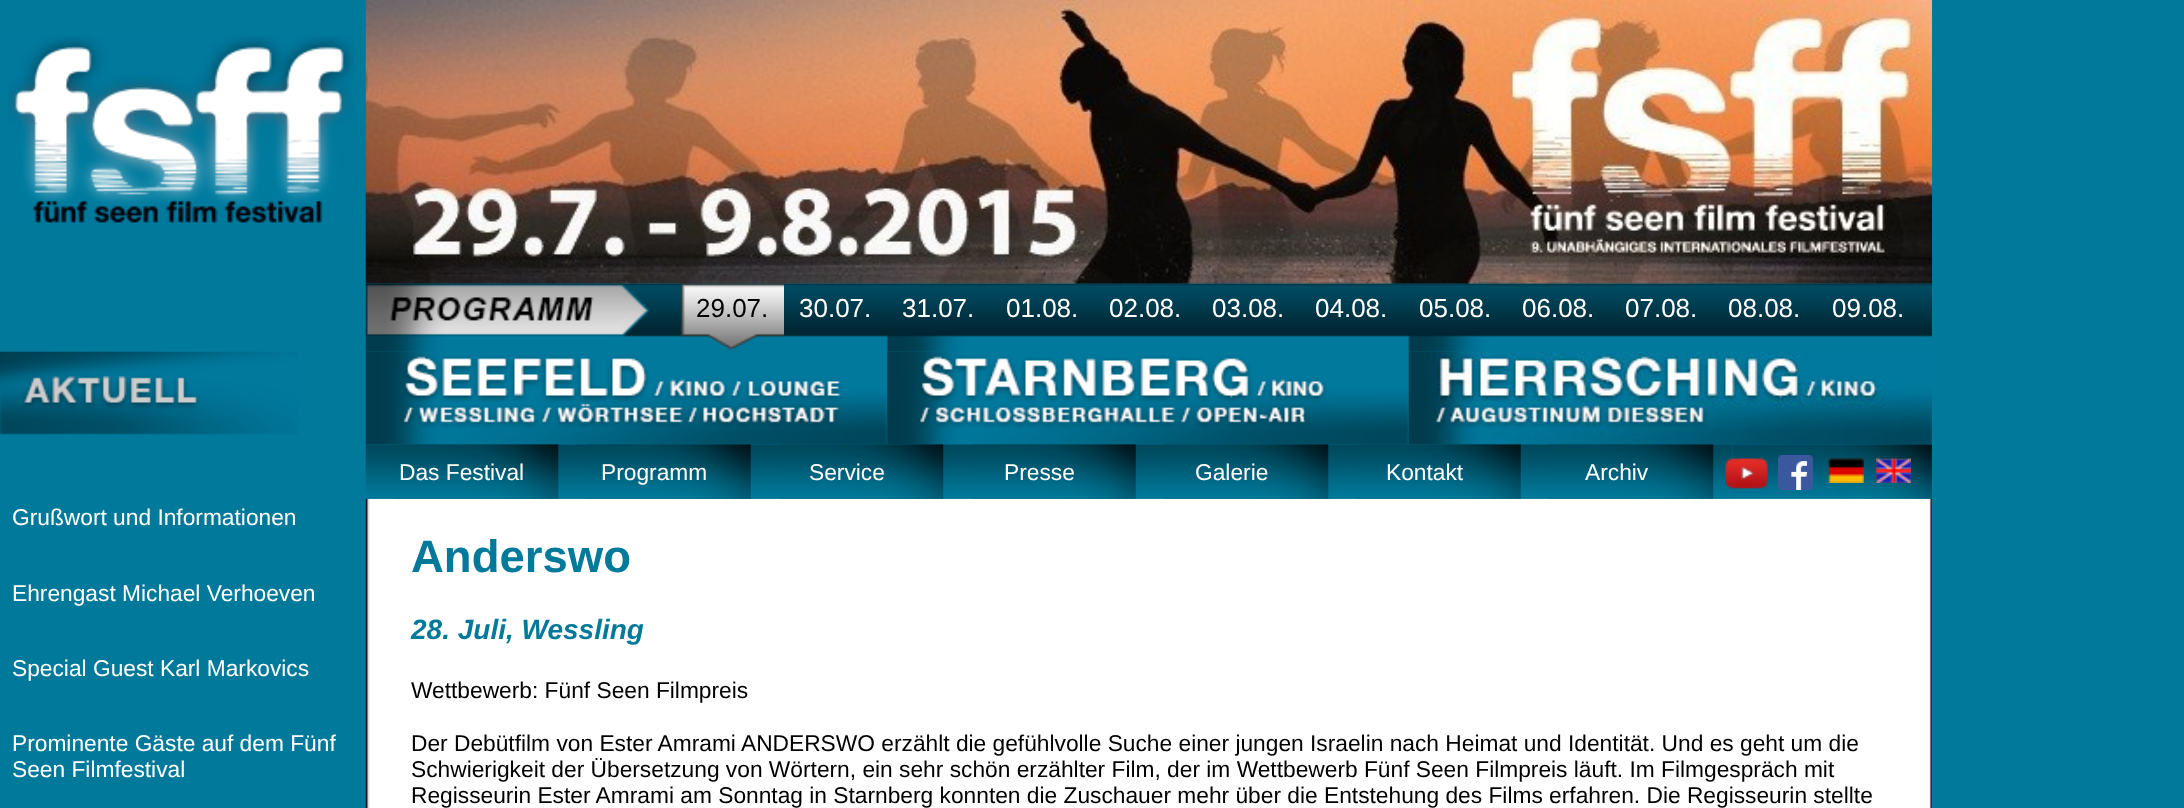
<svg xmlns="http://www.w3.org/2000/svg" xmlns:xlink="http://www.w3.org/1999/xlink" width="2184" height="808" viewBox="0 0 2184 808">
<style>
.cls-1{font:26px Liberation Sans;fill:#000000}
.cls-2{font:26px Liberation Sans;fill:#ffffff}
.cls-3{font:22.75px Liberation Sans;fill:#ffffff}
.cls-4{font:bold 45.5px Liberation Sans;fill:#00799a}
.cls-5{font:italic bold 28px Liberation Sans;fill:#00799a}
.cls-6{font:22.75px Liberation Sans;fill:#000000}
</style>
<rect width="100%" height="100%" fill="#00799a"/>
<image xlink:href="image0.png" x="8" y="36" width="346" height="187"/>
<image xlink:href="image2.png" x="365" y="283" width="1567" height="69"/>
<image xlink:href="image3.png" x="680" y="283" width="104" height="67"/>
<image xlink:href="image1.png" x="365" y="0" width="1567" height="284"/>
<image xlink:href="image4.png" x="365" y="351" width="523" height="94"/>
<image xlink:href="image5.png" x="887" y="351" width="522" height="94"/>
<image xlink:href="image6.png" x="1408" y="351" width="524" height="94"/>
<image xlink:href="image21.png" x="365" y="498" width="1567" height="310"/>
<image xlink:href="image7.png" x="365" y="444" width="1368" height="55"/>
<image xlink:href="image8.png" x="394" y="444" width="165" height="55"/>
<image xlink:href="image9.png" x="586" y="444" width="165" height="55"/>
<image xlink:href="image10.png" x="779" y="444" width="165" height="55"/>
<image xlink:href="image11.png" x="971" y="444" width="165" height="55"/>
<image xlink:href="image12.png" x="1164" y="444" width="165" height="55"/>
<image xlink:href="image13.png" x="1356" y="444" width="165" height="55"/>
<image xlink:href="image14.png" x="1548" y="444" width="166" height="55"/>
<image xlink:href="image15.png" x="1732" y="444" width="200" height="55"/>
<image xlink:href="image16.png" x="1725" y="458" width="43" height="31"/>
<image xlink:href="image17.png" x="1778" y="455" width="35" height="35"/>
<image xlink:href="image18.png" x="1828" y="458" width="36" height="25"/>
<image xlink:href="image19.png" x="1876" y="458" width="35" height="25"/>
<image xlink:href="image20.png" x="0" y="351" width="298" height="84"/>
<text class="cls-1" x="696" y="317">29.07.</text>
<text class="cls-2" x="799" y="317">30.07.</text>
<text class="cls-2" x="902" y="317">31.07.</text>
<text class="cls-2" x="1006" y="317">01.08.</text>
<text class="cls-2" x="1109" y="317">02.08.</text>
<text class="cls-2" x="1212" y="317">03.08.</text>
<text class="cls-2" x="1315" y="317">04.08.</text>
<text class="cls-2" x="1419" y="317">05.08.</text>
<text class="cls-2" x="1522" y="317">06.08.</text>
<text class="cls-2" x="1625" y="317">07.08.</text>
<text class="cls-2" x="1728" y="317">08.08.</text>
<text class="cls-2" x="1832" y="317">09.08.</text>
<text class="cls-3" x="399" y="480">Das Festival</text>
<text class="cls-3" x="601" y="480">Programm</text>
<text class="cls-3" x="809" y="480">Service</text>
<text class="cls-3" x="1004" y="480">Presse</text>
<text class="cls-3" x="1195" y="480">Galerie</text>
<text class="cls-3" x="1386" y="480">Kontakt</text>
<text class="cls-3" x="1585" y="480">Archiv</text>
<text class="cls-3" x="12" y="525">Grußwort und Informationen</text>
<text class="cls-3" x="12" y="601">Ehrengast Michael Verhoeven</text>
<text class="cls-3" x="12" y="676">Special Guest Karl Markovics</text>
<text class="cls-3"><tspan x="12" y="751">Prominente Gäste auf dem Fünf</tspan><tspan x="12" y="777">Seen Filmfestival</tspan></text>
<text class="cls-4" x="411" y="572">Anderswo</text>
<text class="cls-5" x="411" y="639">28. Juli, Wessling</text>
<text class="cls-6" x="411" y="698">Wettbewerb: Fünf Seen Filmpreis</text>
<text class="cls-6"><tspan x="411" y="751">Der Debütfilm von Ester Amrami ANDERSWO erzählt die gefühlvolle Suche einer jungen Israelin nach Heimat und Identität. Und es geht um die</tspan><tspan x="411" y="777">Schwierigkeit der Übersetzung von Wörtern, ein sehr schön erzählter Film, der im Wettbewerb Fünf Seen Filmpreis läuft. Im Filmgespräch mit</tspan><tspan x="411" y="803">Regisseurin Ester Amrami am Sonntag in Starnberg konnten die Zuschauer mehr über die Entstehung des Films erfahren. Die Regisseurin stellte</tspan></text>
</svg>
